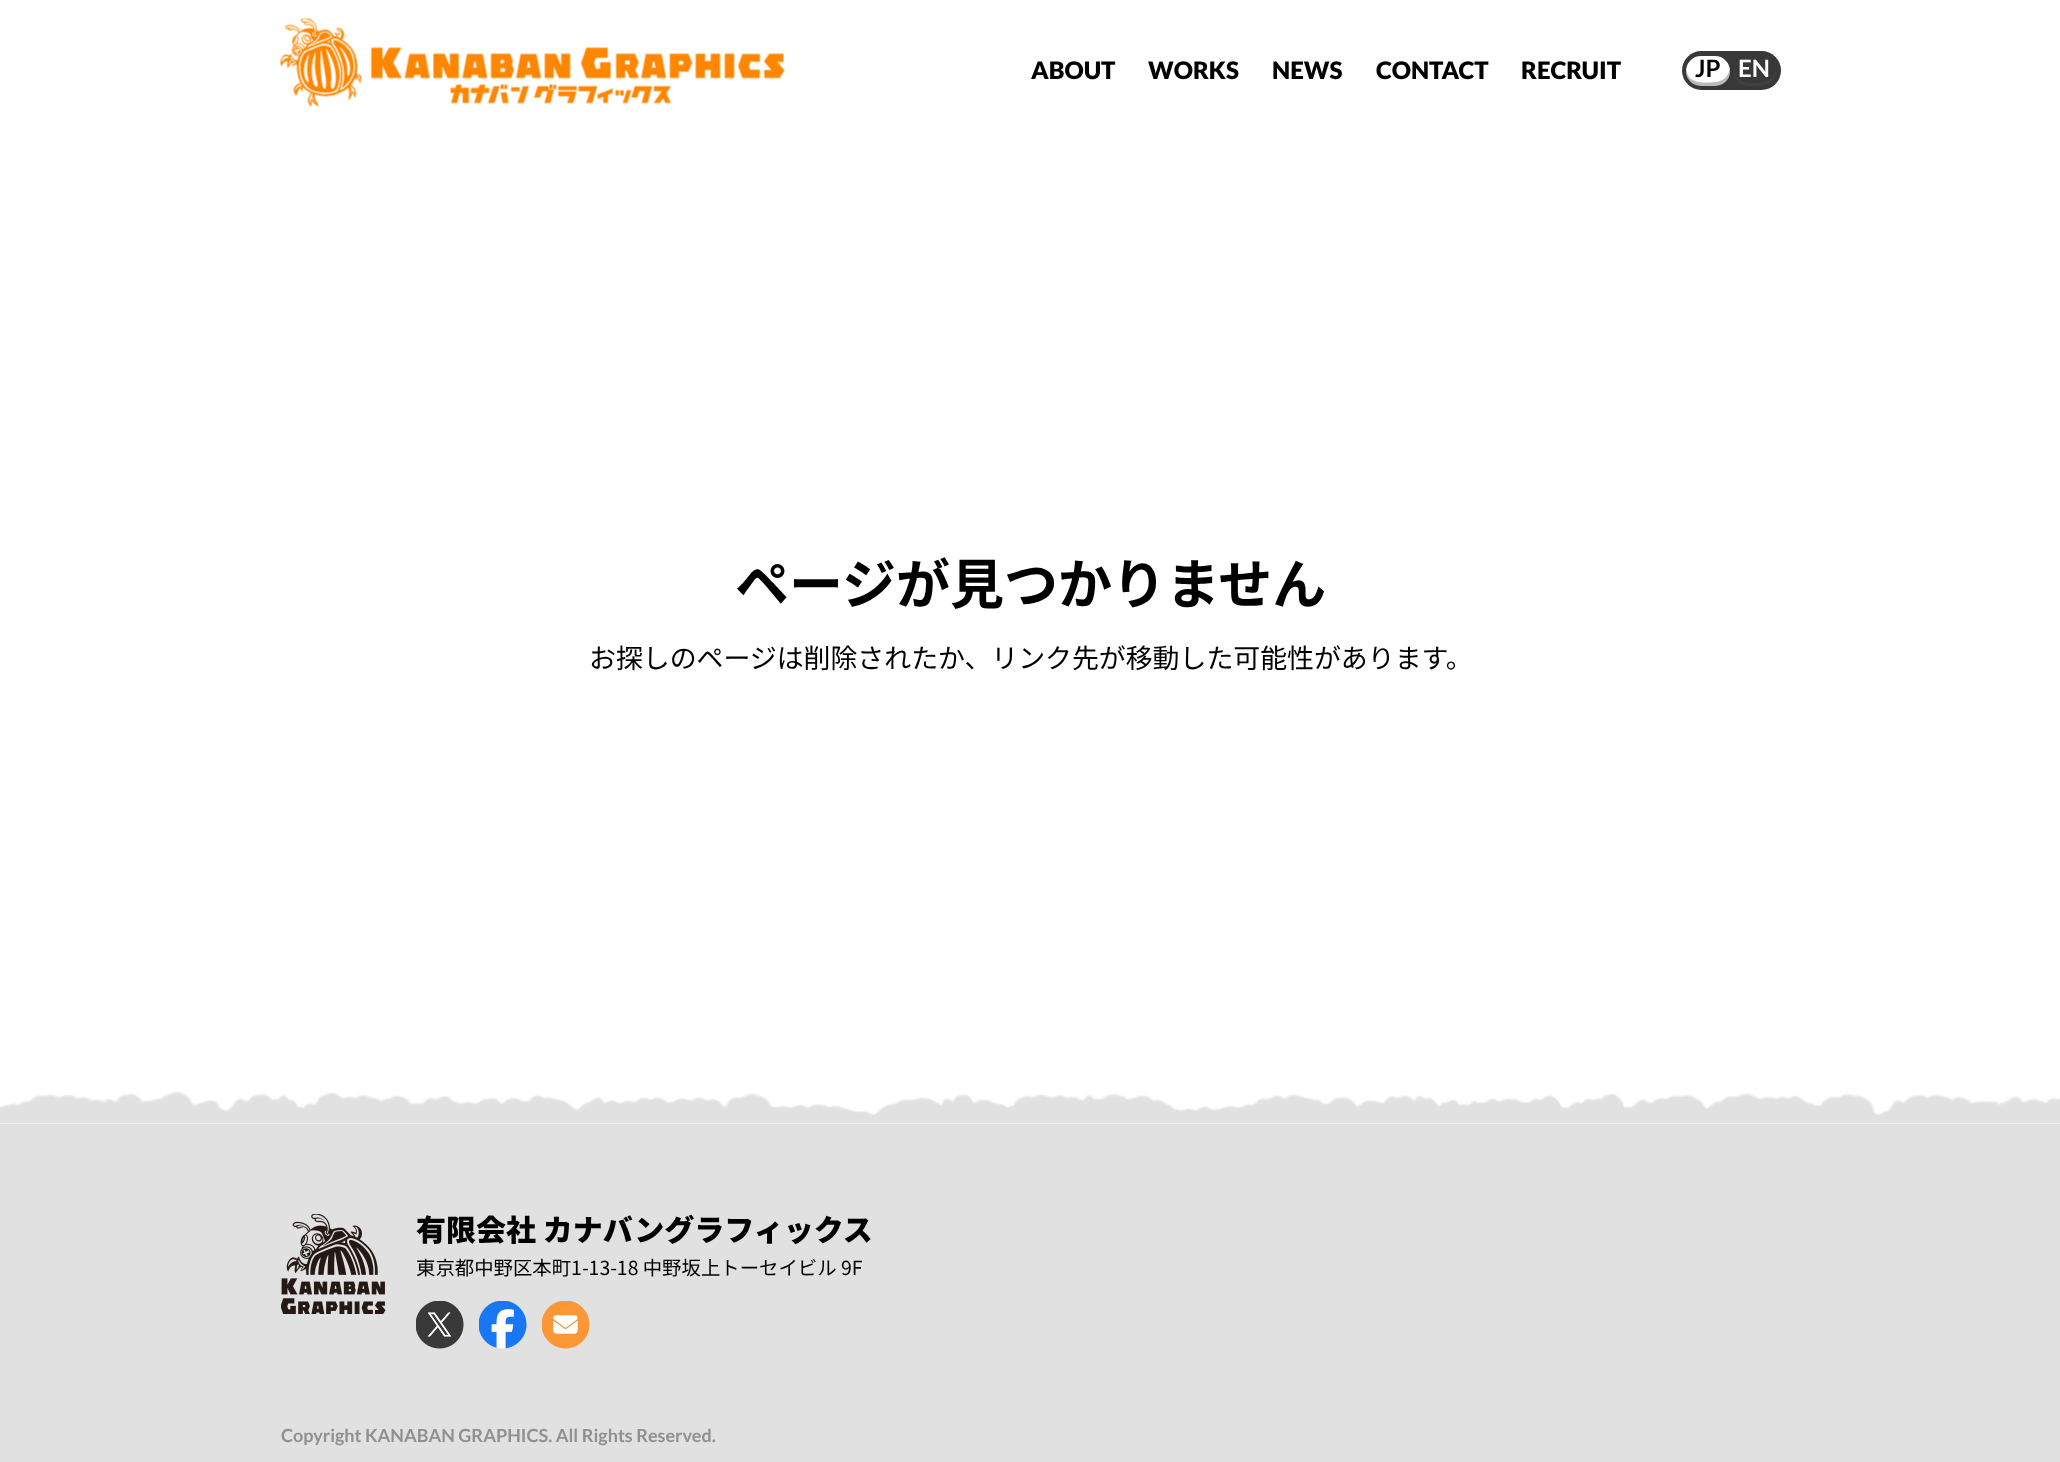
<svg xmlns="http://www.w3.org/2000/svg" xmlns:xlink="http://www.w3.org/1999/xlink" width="2060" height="1462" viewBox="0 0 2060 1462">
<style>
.cls-1{font:900 24px Lato;fill:#000000}
.cls-2{font:bold 24px Lato;fill:#000000}
.cls-3{font:bold 24px Lato;fill:#ffffff}
.cls-4{font:bold 54px Noto Sans JP;fill:#000000}
.cls-5{font:26.9px Noto Sans JP;fill:#000000}
.cls-6{font:900 30px Noto Sans JP;fill:#000000}
.cls-7{font:19.4px Noto Sans JP;fill:#000000}
.cls-8{font:bold 18px Lato;fill:#909090}
</style>
<rect width="100%" height="100%" fill="#ffffff"/>
<image xlink:href="image0.png" x="280" y="18" width="505" height="89"/>
<rect fill="#383838" x="1682" y="51" width="99" height="39" rx="19.5"/>
<rect fill="#ffffff" x="1686" y="56" width="44" height="30" rx="15"/>
<path fill="#4d4d4d" fill-opacity="0.39" d="M1686 69C1685 77 1690 84 1698 86H1718C1726 84 1731 76 1730 68C1729 75 1724 82 1714 82C1709 83 1700 83 1695 81C1689 79 1687 74 1686 69Z"/>
<path fill="#404040" d="M1733 70C1733 78 1738 84 1745 86H1764C1772 84 1777 77 1776 69C1775 76 1770 82 1761 82C1756 83 1747 83 1742 81C1737 79 1734 75 1733 70Z"/>
<rect fill="#e1e1e1" x="0" y="1124" width="2060" height="338"/>
<image xlink:href="image1.png" x="0" y="1091" width="2060" height="33"/>
<image xlink:href="image2.png" x="281" y="1214" width="105" height="100"/>
<image xlink:href="image3.png" x="416" y="1301" width="48" height="48"/>
<image xlink:href="image4.png" x="479" y="1301" width="48" height="48"/>
<image xlink:href="image5.png" x="542" y="1301" width="48" height="48"/>
<text class="cls-1" x="1031" y="79">ABOUT</text>
<text class="cls-1" x="1148" y="79">WORKS</text>
<text class="cls-1" x="1272" y="79">NEWS</text>
<text class="cls-1" x="1376" y="79">CONTACT</text>
<text class="cls-1" x="1521" y="79">RECRUIT</text>
<text class="cls-2" x="1695" y="77">JP</text>
<text class="cls-3" x="1738" y="77">EN</text>
<text class="cls-4" x="735" y="604">ページが見つかりません</text>
<text class="cls-5" x="589" y="668">お探しのページは削除されたか、リンク先が移動した可能性があります。</text>
<text class="cls-6" x="416" y="1241">有限会社 カナバングラフィックス</text>
<text class="cls-7" x="416" y="1275">東京都中野区本町1-13-18 中野坂上トーセイビル 9F</text>
<text class="cls-8" x="281" y="1442">Copyright KANABAN GRAPHICS. All Rights Reserved.</text>
</svg>
